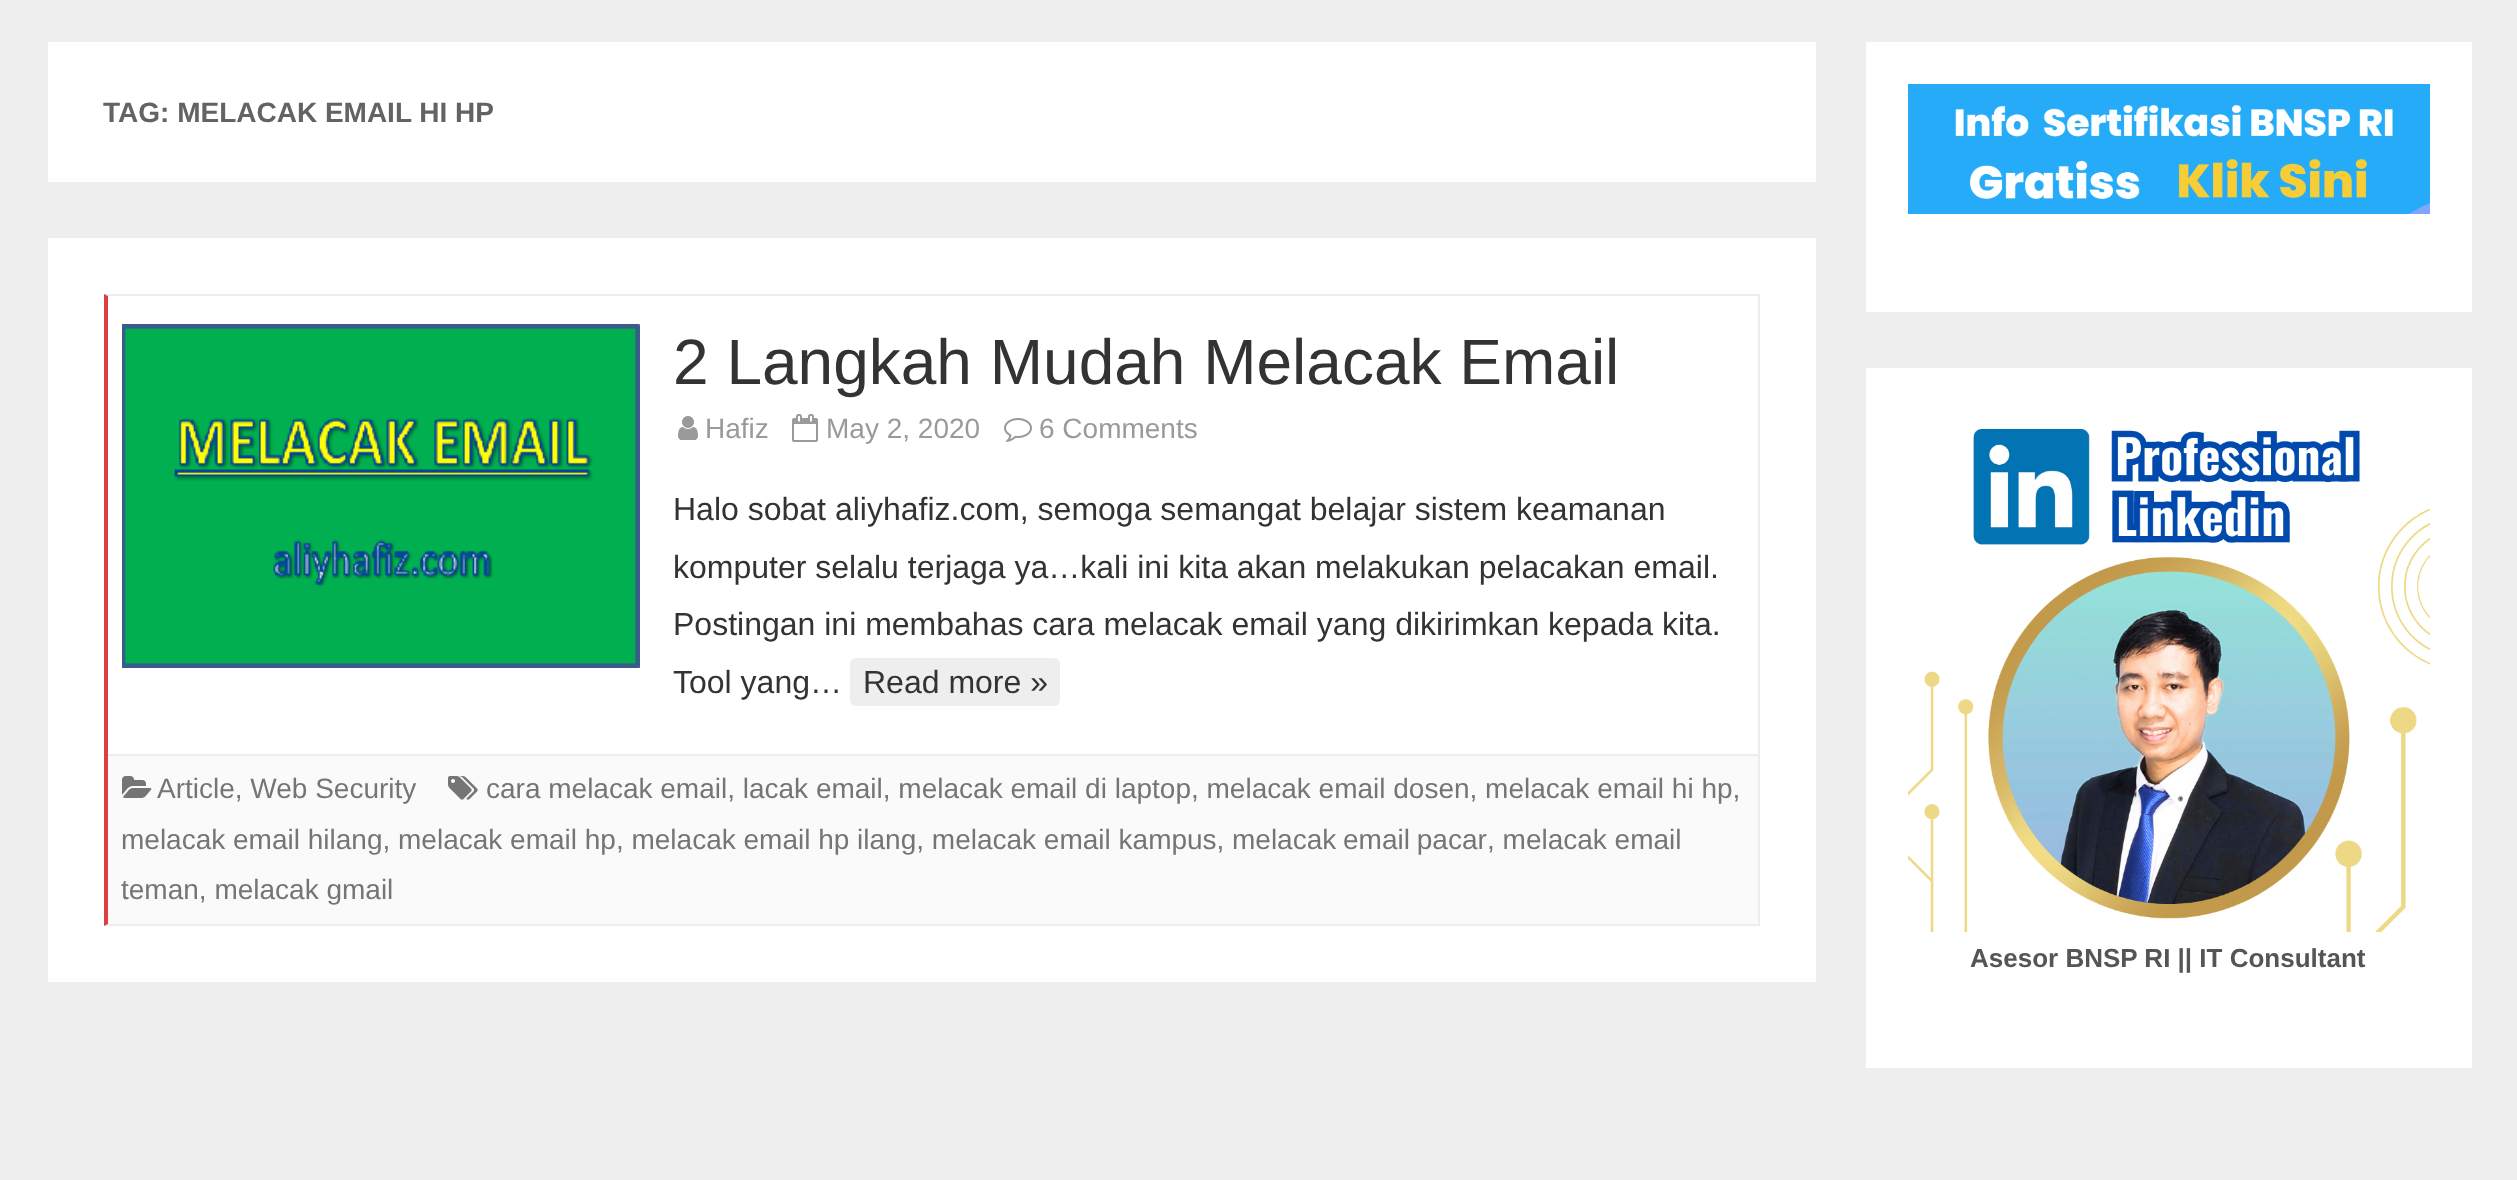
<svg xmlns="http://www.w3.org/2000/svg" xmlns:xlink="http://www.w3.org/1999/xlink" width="2517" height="1180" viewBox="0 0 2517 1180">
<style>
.cls-1{font:bold 28px Arimo;fill:#636363}
.cls-2{font:64px Arimo;fill:#333333}
.cls-3{font:28px Arimo;fill:#9a9a9a}
.cls-4{font:32px Arimo;fill:#333333}
.cls-5{font:28px Arimo;fill:#757575}
.cls-6{font:bold 26px Arimo;fill:#555555}
</style>
<rect width="100%" height="100%" fill="#eeeeee"/>
<rect fill="#ffffff" x="48" y="42" width="1768" height="140"/>
<rect fill="#ffffff" x="48" y="238" width="1768" height="744"/>
<path fill="#ededed" d="M104 294H1760L1758 296H108Z"/>
<rect fill="#ededed" x="1758" y="294" width="2" height="632"/>
<path fill="#ededed" d="M1760 926H104L108 924H1758Z"/>
<path fill="#dd4040" d="M104 926V294L108 296V924Z"/>
<image xlink:href="image0.png" x="122" y="324" width="518" height="344"/>
<image xlink:href="image1.png" x="678" y="416" width="20" height="24"/>
<image xlink:href="image2.png" x="792" y="414" width="26" height="28"/>
<image xlink:href="image3.png" x="1004" y="418" width="28" height="24"/>
<rect fill="#eeeeee" x="850" y="658" width="210" height="48" rx="6"/>
<rect fill="#fafafa" x="108" y="756" width="1650" height="168"/>
<rect fill="#ededed" x="108" y="754" width="1650" height="2"/>
<image xlink:href="image4.png" x="448" y="776" width="30" height="24"/>
<image xlink:href="image5.png" x="122" y="776" width="30" height="22"/>
<rect fill="#ffffff" x="1866" y="42" width="606" height="270"/>
<image xlink:href="image6.png" x="1908" y="84" width="522" height="130"/>
<rect fill="#ffffff" x="1866" y="368" width="606" height="700"/>
<image xlink:href="image7.png" x="1908" y="428" width="522" height="504"/>
<text class="cls-1" x="103" y="122">TAG: MELACAK EMAIL HI HP</text>
<text class="cls-2" x="673" y="384">2 Langkah Mudah Melacak Email</text>
<text class="cls-3" x="705" y="438">Hafiz</text>
<text class="cls-3" x="826" y="438">May 2, 2020</text>
<text class="cls-3" x="1039" y="438">6 Comments</text>
<text class="cls-4"><tspan x="673" y="520">Halo sobat aliyhafiz.com, semoga semangat belajar sistem keamanan</tspan><tspan x="673" y="578">komputer selalu terjaga ya…kali ini kita akan melakukan pelacakan email.</tspan><tspan x="673" y="635">Postingan ini membahas cara melacak email yang dikirimkan kepada kita.</tspan><tspan x="673" y="693">Tool yang…</tspan></text>
<text class="cls-4" x="863" y="693">Read more »</text>
<text class="cls-5" x="486" y="798">cara melacak email, lacak email, melacak email di laptop, melacak email dosen, melacak email hi hp,</text>
<text class="cls-5" x="121" y="849">melacak email hilang, melacak email hp, melacak email hp ilang, melacak email kampus,</text>
<text class="cls-5" x="1232" y="849" word-spacing="-1">melacak email pacar</text>
<text class="cls-5" x="1487" y="849">, melacak email</text>
<text class="cls-5" x="121" y="899">teman, melacak gmail</text>
<text class="cls-5" x="157" y="798">Article, Web Security</text>
<text class="cls-6" x="1970" y="967">Asesor BNSP RI || IT Consultant</text>
</svg>
